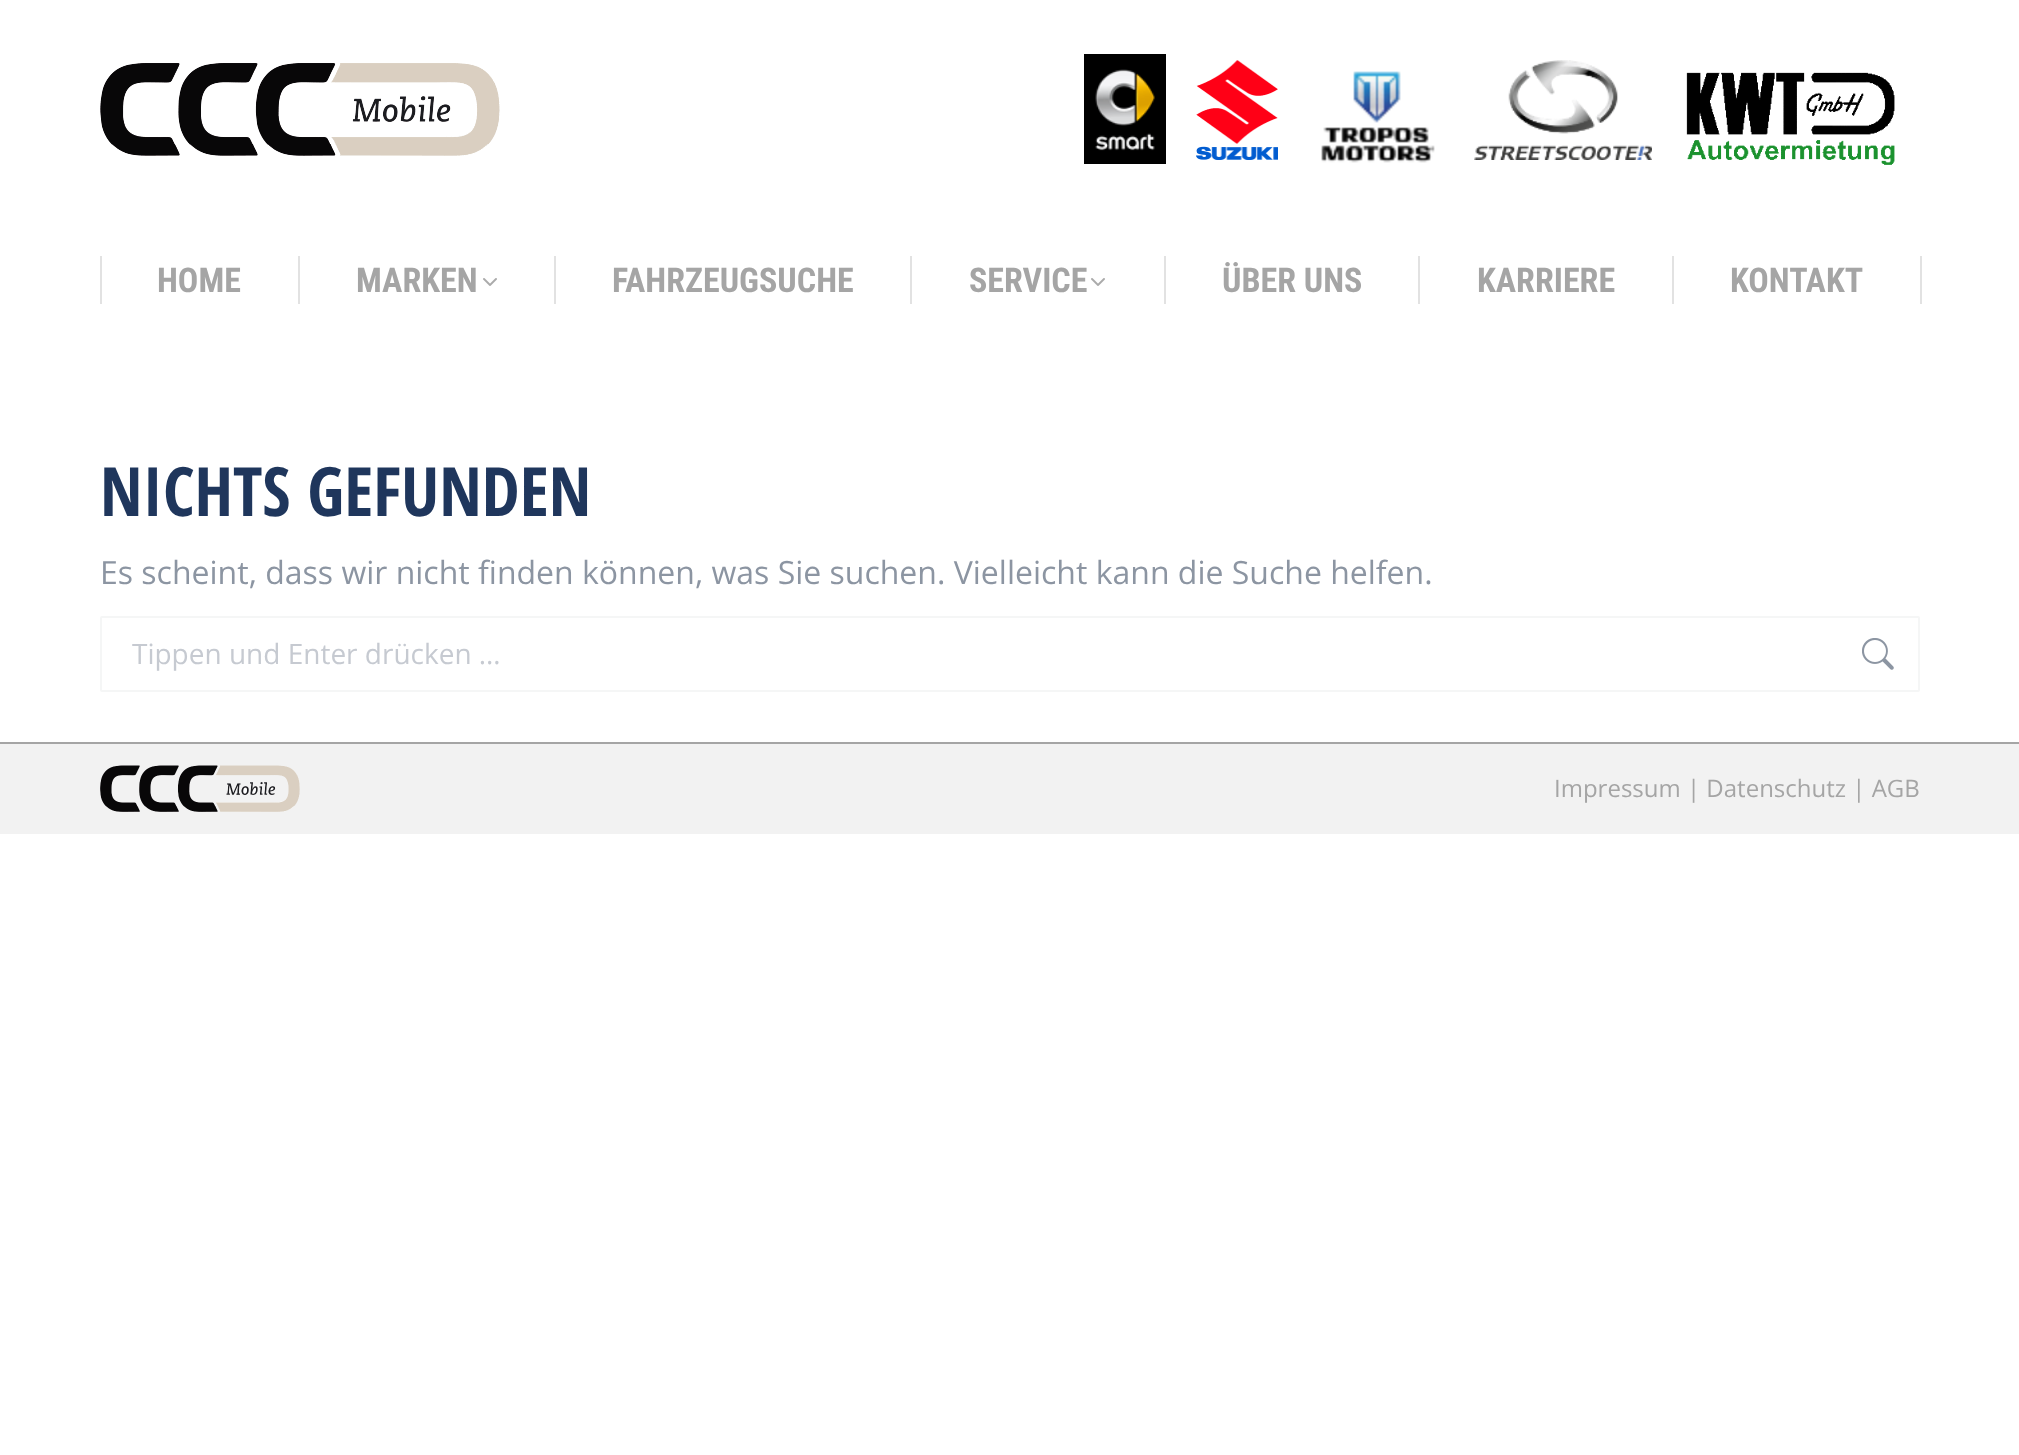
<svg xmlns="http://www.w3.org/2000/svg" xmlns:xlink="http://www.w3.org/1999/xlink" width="2019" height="1455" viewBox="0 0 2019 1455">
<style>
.cls-1{font:bold 34px Roboto Condensed;fill:#a5a5a5}
.cls-2{font:bold 68px Open Sans Condensed;fill:#1f365c}
.cls-3{font:32px Open Sans;fill:#8c95a2}
.cls-4{font:28px Open Sans;fill:#c6cad1}
.cls-5{font:24px Open Sans;fill:#a5a5a5}
</style>
<rect width="100%" height="100%" fill="#ffffff"/>
<image xlink:href="image0.png" x="100" y="63" width="400" height="93"/>
<image xlink:href="image1.png" x="1084" y="54" width="82" height="110"/>
<image xlink:href="image2.png" x="1196" y="60" width="82" height="100"/>
<image xlink:href="image3.png" x="1321" y="71" width="114" height="92"/>
<image xlink:href="image4.png" x="1474" y="60" width="178" height="100"/>
<image xlink:href="image5.png" x="1686" y="72" width="209" height="93"/>
<rect fill="#e2e2e2" x="100" y="256" width="2" height="48"/>
<rect fill="#e2e2e2" x="298" y="256" width="2" height="48"/>
<image xlink:href="image6.png" x="483" y="278" width="14" height="8"/>
<rect fill="#e2e2e2" x="554" y="256" width="2" height="48"/>
<rect fill="#e2e2e2" x="910" y="256" width="2" height="48"/>
<image xlink:href="image6.png" x="1091" y="278" width="14" height="8"/>
<rect fill="#e2e2e2" x="1164" y="256" width="2" height="48"/>
<rect fill="#e2e2e2" x="1418" y="256" width="2" height="48"/>
<rect fill="#e2e2e2" x="1672" y="256" width="2" height="48"/>
<rect fill="#e2e2e2" x="1920" y="256" width="2" height="48"/>
<rect fill="none" stroke="#f5f6f6" stroke-width="2" x="101" y="617" width="1818" height="74" rx="1"/>
<image xlink:href="image7.png" x="1862" y="638" width="32" height="32"/>
<rect fill="#f2f2f2" x="0" y="744" width="2019" height="90"/>
<rect fill="#a5a5a5" x="0" y="742" width="2019" height="2"/>
<image xlink:href="image8.png" x="100" y="765" width="200" height="47"/>
<text class="cls-1" x="157" y="292">HOME</text>
<text class="cls-1" x="356" y="292">MARKEN</text>
<text class="cls-1" x="612" y="292">FAHRZEUGSUCHE</text>
<text class="cls-1" x="969" y="292">SERVICE</text>
<text class="cls-1" x="1222" y="292">ÜBER UNS</text>
<text class="cls-1" x="1477" y="292">KARRIERE</text>
<text class="cls-1" x="1730" y="292">KONTAKT</text>
<text class="cls-2" x="100" y="516">NICHTS GEFUNDEN</text>
<text class="cls-3" x="100" y="584">Es scheint, dass wir nicht finden können, was Sie suchen. Vielleicht kann die Suche helfen.</text>
<text class="cls-4" x="132" y="664">Tippen und Enter drücken …</text>
<text class="cls-5" x="1554" y="797">Impressum | Datenschutz | AGB</text>
</svg>
